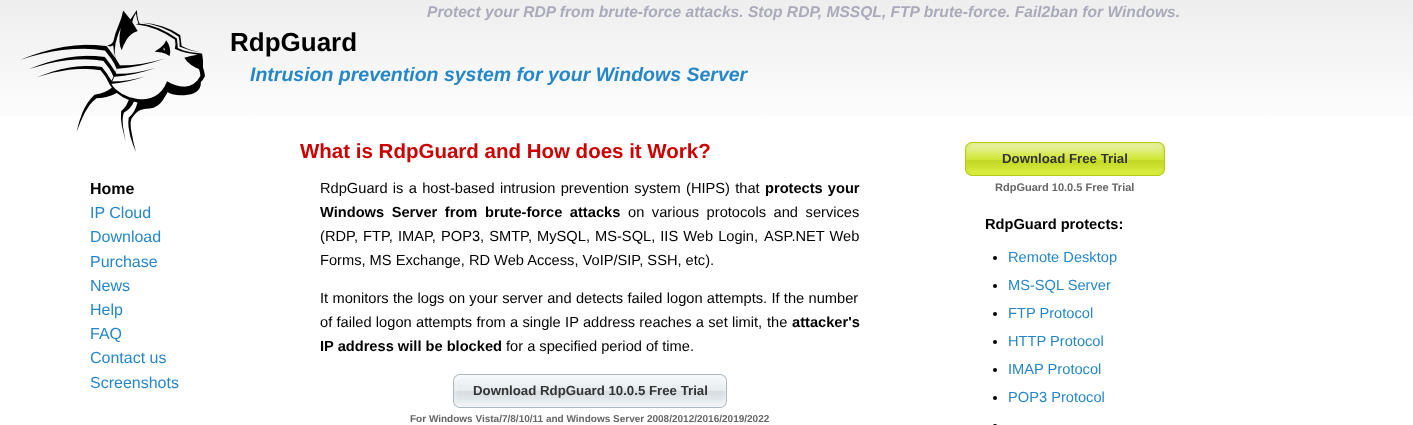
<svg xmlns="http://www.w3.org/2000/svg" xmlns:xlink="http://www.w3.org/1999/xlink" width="1413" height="425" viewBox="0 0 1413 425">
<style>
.cls-1{font:bold 26px Liberation Sans;fill:#000000}
.cls-2{font:italic bold 15.6px Liberation Sans;fill:#aaaabb}
.cls-3{font:italic bold 19.5px Liberation Sans;fill:#2687c8}
.cls-4{font:bold 16px Liberation Sans;fill:#000000}
.cls-5{font:16px Liberation Sans;fill:#2687c8}
.cls-6{font:bold 20.5px Liberation Sans;fill:#cc0000}
.cls-7{font:14.65px Liberation Sans;fill:#000000}
.cls-8{font:bold 14.65px Liberation Sans;fill:#000000}
.cls-9{font:bold 13.25px Liberation Sans;fill:#333333}
.cls-10{font:bold 10px Liberation Sans;fill:#666666}
.cls-11{font:bold 11px Liberation Sans;fill:#666666}
.cls-12{font:14.65px Liberation Sans;fill:#2687c8}
</style>
<defs>
<linearGradient id="g1" gradientUnits="userSpaceOnUse" x1="707" y1="0" x2="707" y2="136"><stop offset="0" stop-color="#eeeeee"/><stop offset="1" stop-color="#ffffff"/></linearGradient>
</defs>
<rect width="100%" height="100%" fill="#ffffff"/>
<rect fill="url(#g1)" x="0" y="0" width="1413" height="116"/>
<image xlink:href="image0.png" x="20" y="10" width="185" height="142"/>
<image xlink:href="image1.png" x="453" y="374" width="268" height="34"/>
<image xlink:href="image2.png" x="721" y="374" width="6" height="34"/>
<image xlink:href="image3.png" x="965" y="142" width="193" height="34"/>
<image xlink:href="image4.png" x="1158" y="142" width="7" height="34"/>
<circle fill="#000000" cx="995" cy="258" r="2"/>
<circle fill="#000000" cx="995" cy="286" r="2"/>
<circle fill="#000000" cx="995" cy="314" r="2"/>
<circle fill="#000000" cx="995" cy="342" r="2"/>
<circle fill="#000000" cx="995" cy="370" r="2"/>
<circle fill="#000000" cx="995" cy="398" r="2"/>
<rect fill="#000000" x="993" y="424" width="4" height="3" rx="2"/>
<text class="cls-1" x="230" y="51">RdpGuard</text>
<text class="cls-2" x="427" y="17">Protect your RDP from brute-force attacks. Stop RDP, MSSQL, FTP brute-force. Fail2ban for Windows.</text>
<text class="cls-3" x="250" y="81">Intrusion prevention system for your Windows Server</text>
<text class="cls-4" x="90" y="194">Home</text>
<text class="cls-5"><tspan x="90" y="218">IP Cloud</tspan><tspan x="90" y="242">Download</tspan><tspan x="90" y="267">Purchase</tspan><tspan x="90" y="291">News</tspan><tspan x="90" y="315">Help</tspan><tspan x="90" y="339">FAQ</tspan><tspan x="90" y="363">Contact us</tspan><tspan x="90" y="388">Screenshots</tspan></text>
<text class="cls-6" x="300" y="158">What is RdpGuard and How does it Work?</text>
<text class="cls-7" x="320" y="193" word-spacing="1.25">RdpGuard is a host-based intrusion prevention system (HIPS) that</text>
<text class="cls-8" x="765" y="193" word-spacing="1">protects your</text>
<text class="cls-8" x="320" y="217" word-spacing="3.5">Windows Server from</text>
<text class="cls-8" x="485" y="217" word-spacing="3.5">brute-force attacks</text>
<text class="cls-7" x="628" y="217" word-spacing="3.5">on various protocols and services</text>
<text class="cls-7" x="320" y="241" word-spacing="1">(RDP, FTP, IMAP, POP3, SMTP, MySQL, MS-SQL, IIS Web Login,</text>
<text class="cls-7" x="764" y="241" word-spacing="1">ASP.NET Web</text>
<text class="cls-7" x="320" y="265">Forms, MS Exchange, RD Web Access, VoIP/SIP, SSH, etc).</text>
<text class="cls-7"><tspan x="320" y="303" word-spacing="0.25">It monitors the logs on your server and detects failed logon attempts. If the number</tspan><tspan x="320" y="327" word-spacing="0.25">of failed logon attempts from a single IP address reaches a set limit,</tspan></text>
<text class="cls-7" x="767" y="327">the</text>
<text class="cls-8" x="792" y="327">attacker's</text>
<text class="cls-8" x="320" y="351">IP address will be blocked</text>
<text class="cls-7" x="506" y="351">for a specified period of time.</text>
<text class="cls-9" x="473" y="395">Download RdpGuard 10.0.5 Free Trial</text>
<text class="cls-10" x="410" y="422">For Windows Vista/7/8/10/11 and Windows Server 2008/2012/2016/2019/2022</text>
<text class="cls-9" x="1002" y="163">Download Free Trial</text>
<text class="cls-11" x="995" y="191">RdpGuard 10.0.5 Free Trial</text>
<text class="cls-8" x="985" y="229">RdpGuard protects:</text>
<text class="cls-12"><tspan x="1008" y="262">Remote Desktop</tspan><tspan x="1008" y="290">MS-SQL Server</tspan><tspan x="1008" y="318">FTP Protocol</tspan><tspan x="1008" y="346">HTTP Protocol</tspan><tspan x="1008" y="374">IMAP Protocol</tspan><tspan x="1008" y="402">POP3 Protocol</tspan></text>
</svg>
